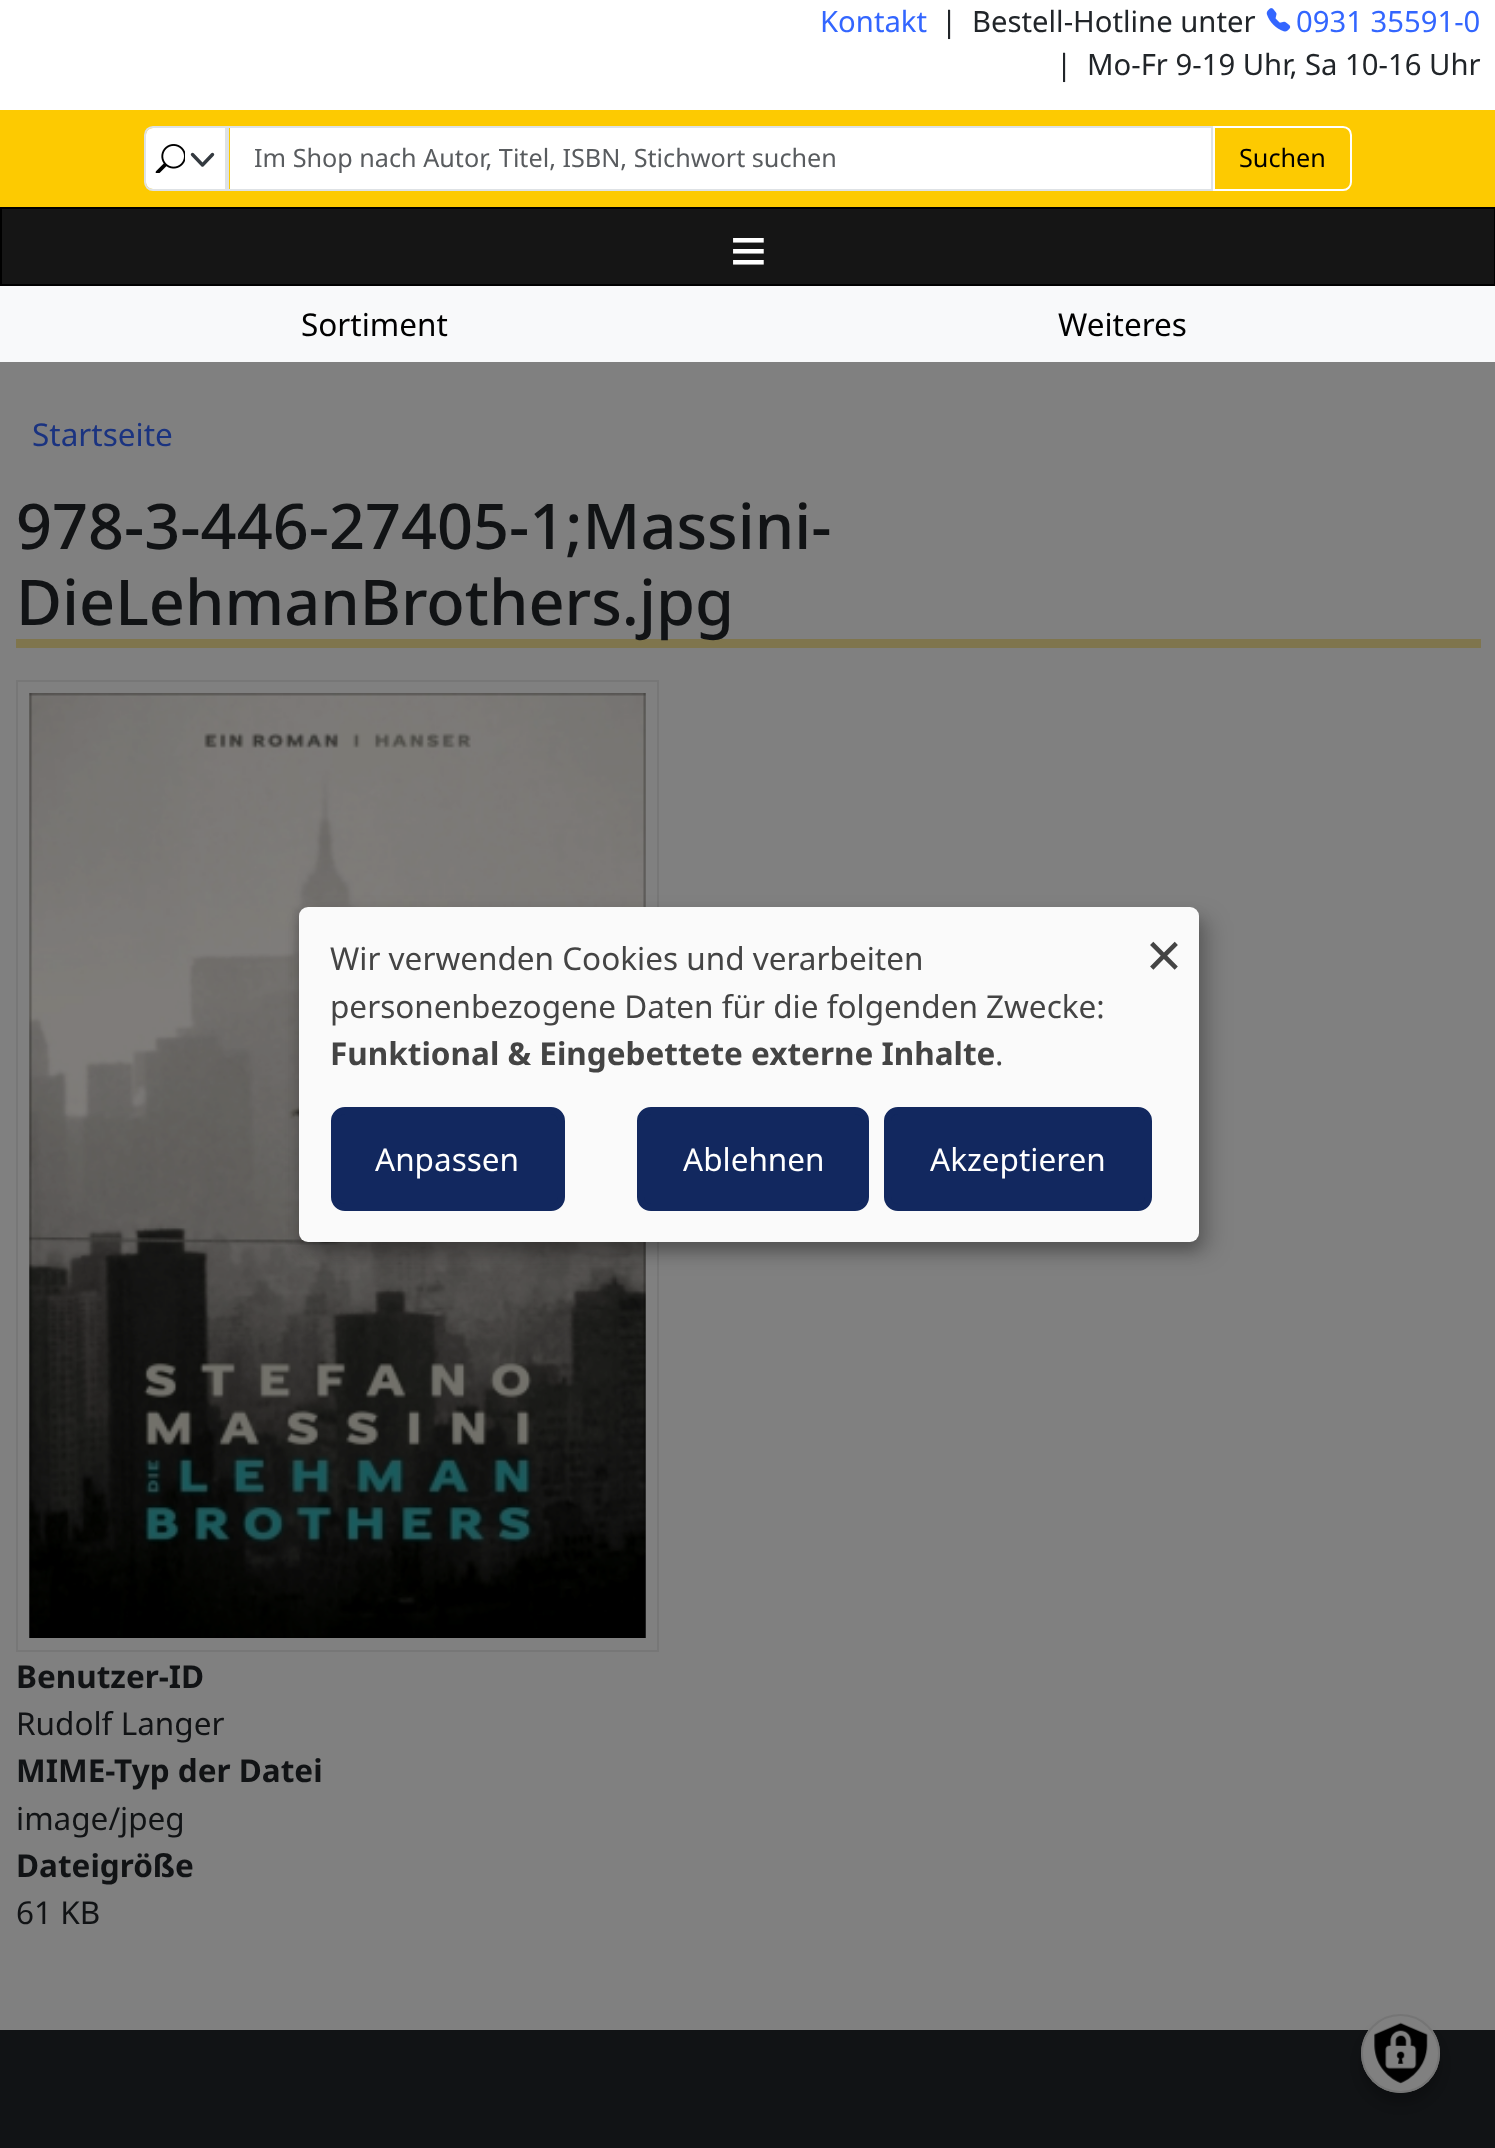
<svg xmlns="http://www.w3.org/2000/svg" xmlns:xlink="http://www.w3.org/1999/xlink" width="1495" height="2148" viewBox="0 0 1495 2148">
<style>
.cls-1{font:29.25px Noto Sans;fill:#3366ff}
.cls-2{font:29.25px Noto Sans;fill:#212529}
.cls-3{font:25.2px Noto Sans;fill:#595c5f}
.cls-4{font:25.2px Noto Sans;fill:#000000}
.cls-5{font:bold 63px Liberation Sans;fill:#ffffff}
.cls-6{font:31.5px Noto Sans;fill:#000000}
.cls-7{font:31.5px Noto Sans;fill:#1a3380}
.cls-8{font:500 63px Noto Sans;fill:#111315}
.cls-9{font:bold 31.5px Noto Sans;fill:#111315}
.cls-10{font:31.5px Noto Sans;fill:#111315}
.cls-11{font:31.5px Noto Sans;fill:#444444}
.cls-12{font:bold 31.5px Noto Sans;fill:#444444}
.cls-13{font:31.5px Noto Sans;fill:#ffffff}
.cls-14{font:63px Noto Sans;fill:#444444}
</style>
<rect width="100%" height="100%" fill="#808080"/>
<rect fill="#fdca01" x="0" y="110" width="1495" height="97"/>
<rect fill="#ffffff" x="0" y="0" width="1495" height="110"/>
<image xlink:href="image0.png" x="1266" y="8" width="25" height="24"/>
<path fill="#ffffff" d="M153 128H225V189H153C149 189 146 186 146 182V135C146 131 149 128 153 128Z"/>
<path fill="none" stroke="#343a40" stroke-width="3.4" stroke-linecap="round" stroke-linejoin="round" d="M192.5 154.5L202.5 165L212.5 154.5"/>
<path fill="none" stroke="#dee2e6" stroke-width="2" d="M153 127H226V190H153C148.5 190 145 186.5 145 182V135C145 130.5 148.5 127 153 127Z"/>
<image xlink:href="image1.png" x="155" y="144" width="30" height="29"/>
<rect fill="#ffffff" x="230" y="128" width="981" height="61"/>
<rect fill="none" stroke="#dee2e6" stroke-width="2" x="228" y="127" width="984" height="63"/>
<path fill="none" stroke="#ffffff" stroke-width="2" d="M1214 127H1343C1347.5 127 1351 130.5 1351 135V182C1351 186.5 1347.5 190 1343 190H1214Z"/>
<rect fill="#151515" stroke="#000000" stroke-width="2" x="1" y="208" width="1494" height="77"/>
<rect fill="#f8f9fa" x="0" y="286" width="1495" height="76"/>
<rect fill="#7f754d" x="16" y="639" width="1465" height="9"/>
<rect fill="none" stroke="#777777" stroke-width="2" x="17" y="681" width="641" height="970"/>
<image xlink:href="image2.png" x="29" y="693" width="617" height="945"/>
<rect fill="#111315" x="0" y="2030" width="1495" height="118"/>
<rect fill="#000000" fill-opacity="0.19" filter="blur(11px)" x="311" y="918" width="900" height="335" rx="9"/>
<rect fill="#000000" fill-opacity="0.2" filter="blur(7px)" x="299" y="916" width="900" height="335" rx="9"/>
<rect fill="#fafafa" x="299" y="907" width="900" height="335" rx="9"/>
<rect fill="#12285f" stroke="#12285f" stroke-width="7" x="334.5" y="1110.5" width="227" height="97" rx="10.5"/>
<rect fill="#12285f" stroke="#12285f" stroke-width="7" x="640.5" y="1110.5" width="225" height="97" rx="10.5"/>
<rect fill="#12285f" stroke="#12285f" stroke-width="7" x="887.5" y="1110.5" width="261" height="97" rx="10.5"/>
<rect fill="#000000" fill-opacity="0.2" filter="blur(5.5px)" x="1361" y="2025" width="79" height="79" rx="39.5"/>
<circle fill="#808080" cx="1400.5" cy="2053.5" r="39.5"/>
<image xlink:href="image3.png" x="1374" y="2022" width="54" height="62"/>
<circle fill="none" stroke="#757575" stroke-width="2" cx="1400.5" cy="2053.5" r="38.5"/>
<text class="cls-1" x="820" y="32">Kontakt</text>
<text class="cls-2" x="941" y="32">|</text>
<text class="cls-2" x="972" y="32">Bestell-Hotline unter</text>
<text class="cls-1" x="1296" y="32">0931 35591-0</text>
<text class="cls-2" x="1056" y="75">|</text>
<text class="cls-2" x="1087" y="75">Mo-Fr 9-19 Uhr, Sa 10-16 Uhr</text>
<text class="cls-3" x="254" y="167">Im Shop nach Autor, Titel, ISBN, Stichwort suchen</text>
<text class="cls-4" x="1239" y="167">Suchen</text>
<text class="cls-5" x="730" y="272">≡</text>
<text class="cls-6" x="301" y="336">Sortiment</text>
<text class="cls-6" x="1058" y="336">Weiteres</text>
<text class="cls-7" x="32" y="446">Startseite</text>
<text class="cls-8"><tspan x="16" y="549">978-3-446-27405-1;Massini-</tspan><tspan x="16" y="625">DieLehmanBrothers.jpg</tspan></text>
<text class="cls-9" x="16" y="1688">Benutzer-ID</text>
<text class="cls-10" x="16" y="1735">Rudolf Langer</text>
<text class="cls-9" x="16" y="1782">MIME-Typ der Datei</text>
<text class="cls-10" x="16" y="1830">image/jpeg</text>
<text class="cls-9" x="16" y="1877">Dateigröße</text>
<text class="cls-10" x="16" y="1924">61 KB</text>
<text class="cls-11"><tspan x="330" y="970">Wir verwenden Cookies und verarbeiten</tspan><tspan x="330" y="1018">personenbezogene Daten für die folgenden Zwecke:</tspan></text>
<text class="cls-12" x="330" y="1065">Funktional &amp; Eingebettete externe Inhalte</text>
<text class="cls-11" x="995" y="1065">.</text>
<text class="cls-13" x="375" y="1171">Anpassen</text>
<text class="cls-13" x="683" y="1171">Ablehnen</text>
<text class="cls-13" x="930" y="1171">Akzeptieren</text>
<text class="cls-14" x="1146" y="978">×</text>
</svg>
